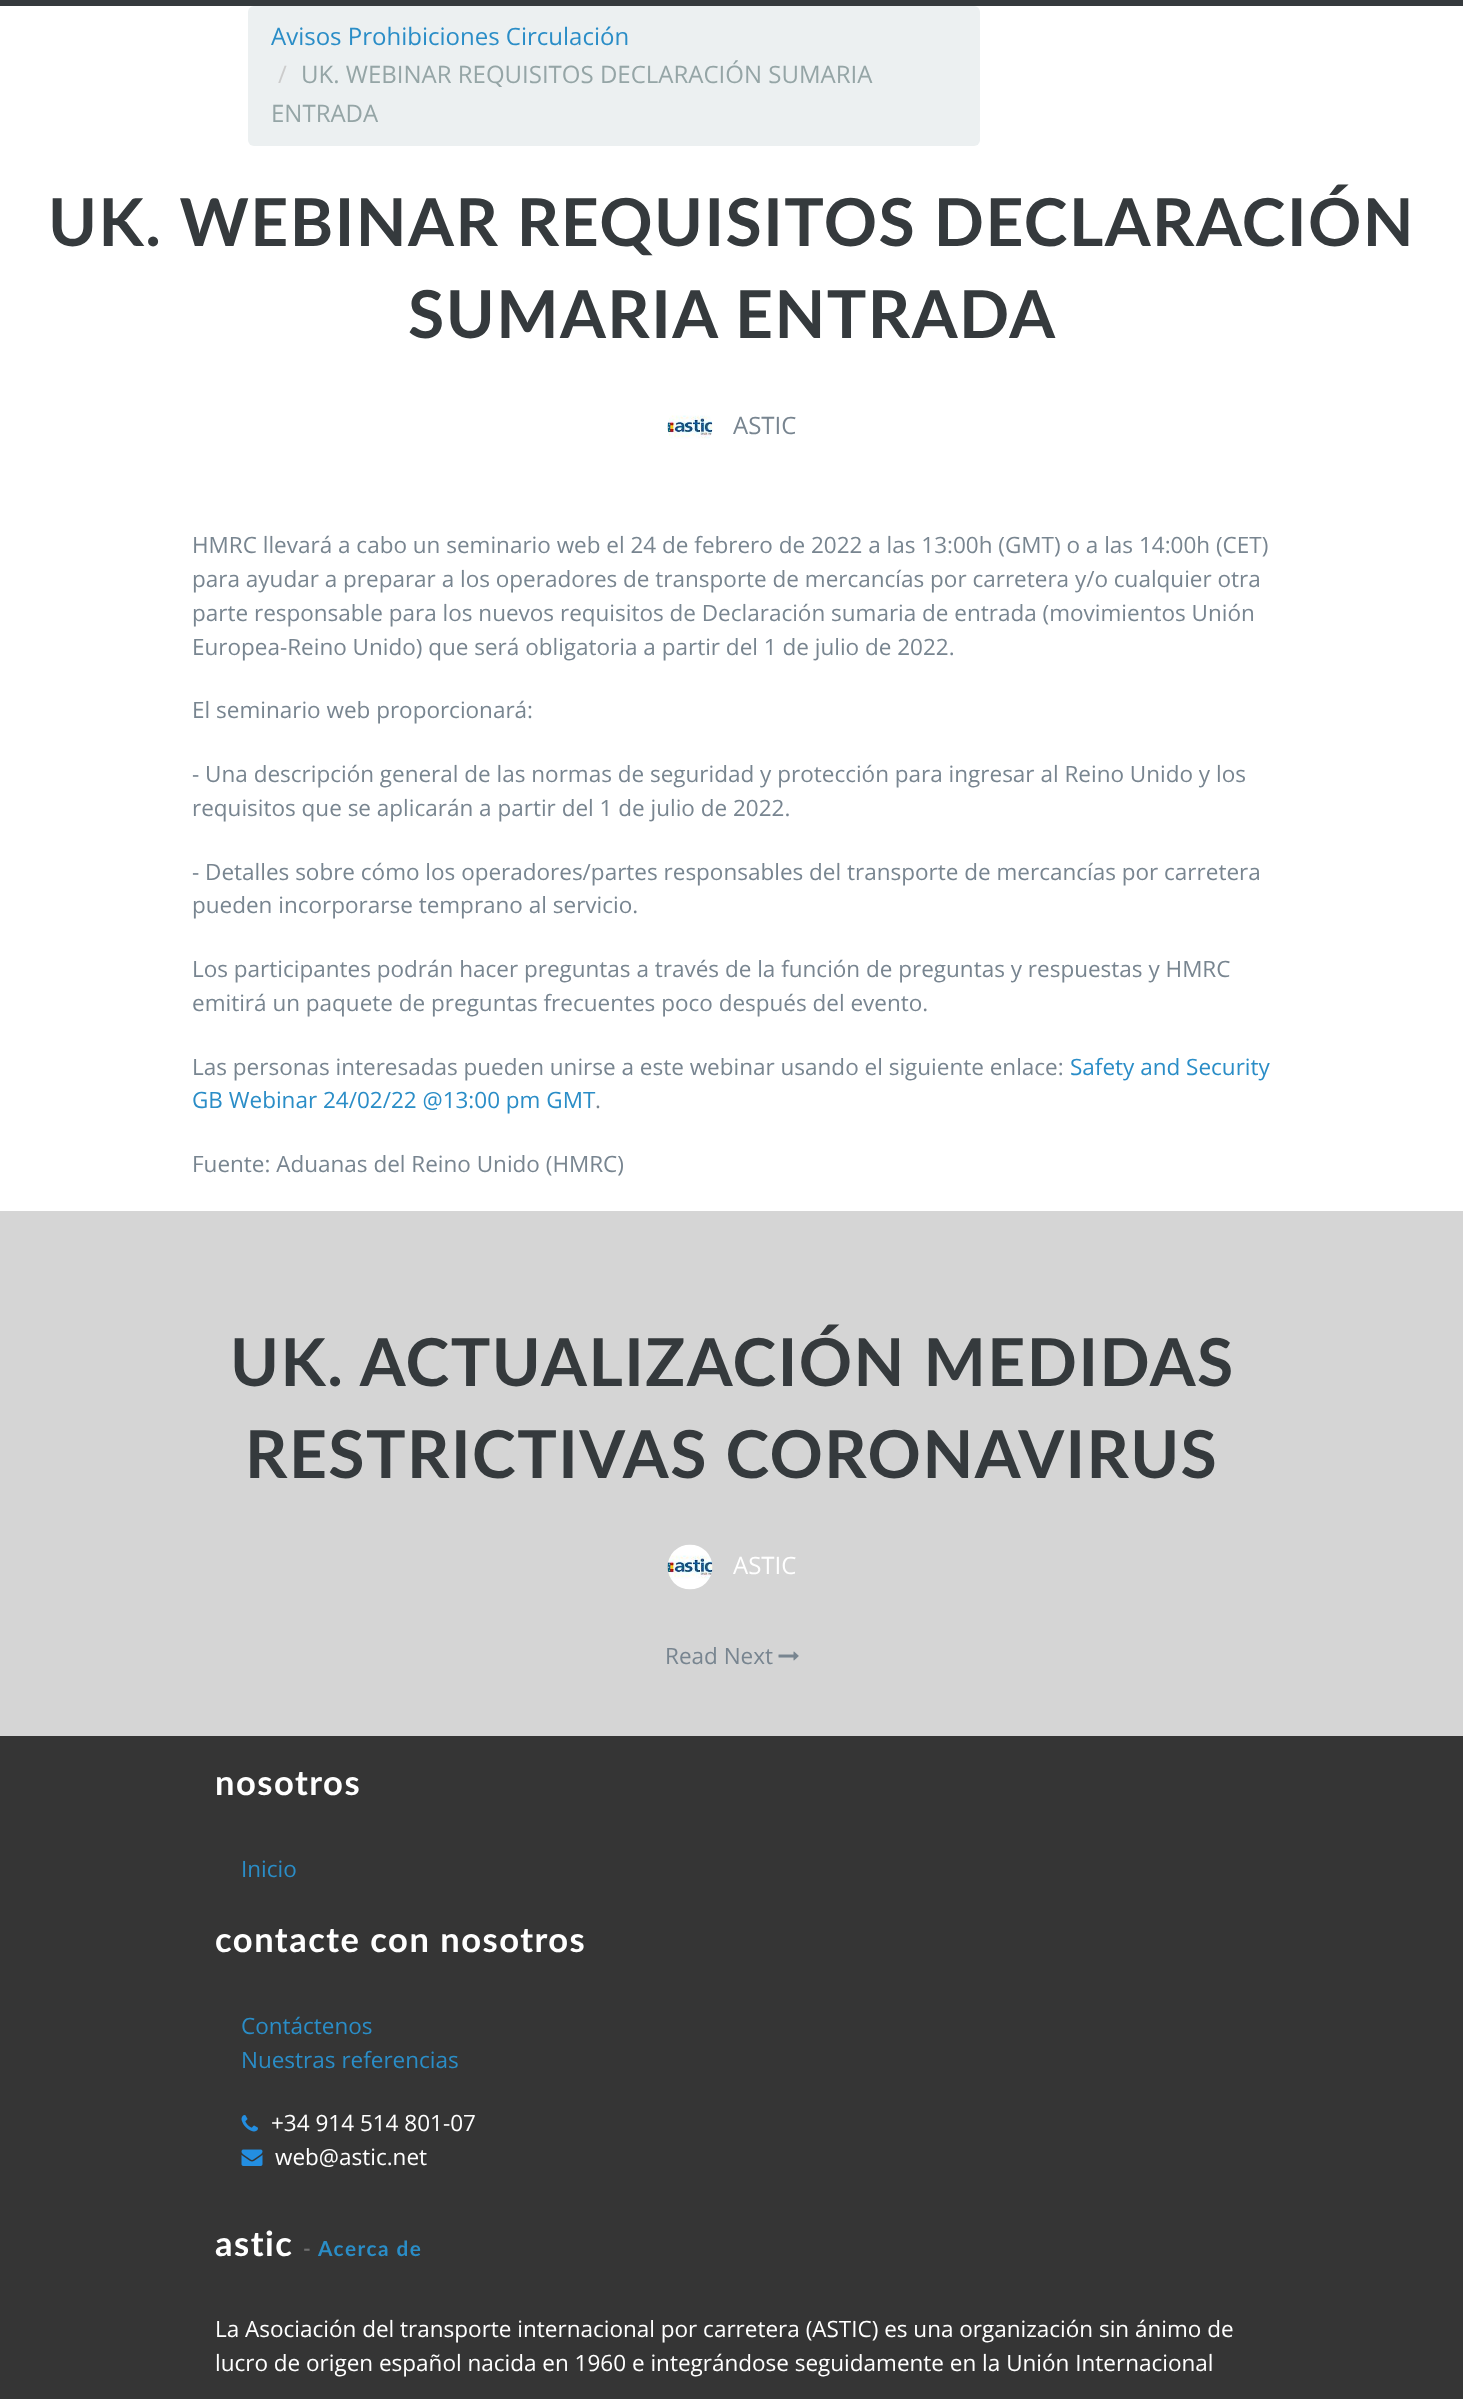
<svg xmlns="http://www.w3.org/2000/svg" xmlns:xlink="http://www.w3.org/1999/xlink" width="1463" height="2399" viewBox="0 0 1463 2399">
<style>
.cls-1{font:24px Open Sans;fill:#2a8dc7}
.cls-2{font:24px Open Sans;fill:#cccccc}
.cls-3{font:24px Open Sans;fill:#95a5a6}
.cls-4{font:bold 66px Lato;letter-spacing:1.5px;fill:#353a3d}
.cls-5{font:24px Open Sans;fill:#788590}
.cls-6{font:22.5px Open Sans;fill:#788590}
.cls-7{font:22.5px Open Sans;fill:#2a8dc7}
.cls-8{font:24px Open Sans;fill:#ffffff}
.cls-9{font:bold 34.5px Lato;letter-spacing:1.5px;fill:#ffffff}
.cls-10{font:22.5px Open Sans;fill:#ffffff}
.cls-11{font:bold 20.75px Lato;letter-spacing:1.5px;fill:#6f6f6f}
.cls-12{font:bold 20.75px Lato;letter-spacing:1.5px;fill:#2a8dc7}
</style>
<rect width="100%" height="100%" fill="#ffffff"/>
<rect fill="#353a3d" x="0" y="0" width="1463" height="6"/>
<rect fill="#ecf0f1" x="248" y="6" width="732" height="140" rx="6"/>
<image xlink:href="image0.png" x="667" y="415" width="46" height="24"/>
<rect fill="#d5d5d5" x="0" y="1211" width="1463" height="525"/>
<image xlink:href="image1.png" x="667" y="1544" width="46" height="46"/>
<image xlink:href="image2.png" x="778" y="1651" width="21" height="10"/>
<rect fill="#353535" x="0" y="1736" width="1463" height="663"/>
<image xlink:href="image3.png" x="241" y="2115" width="17" height="17"/>
<image xlink:href="image4.png" x="241" y="2149" width="22" height="17"/>
<text class="cls-1" x="271" y="45">Avisos Prohibiciones Circulación</text>
<text class="cls-2" x="278" y="83">/</text>
<text class="cls-3" x="301" y="83">UK. WEBINAR REQUISITOS DECLARACIÓN SUMARIA</text>
<text class="cls-3" x="271" y="122">ENTRADA</text>
<text class="cls-4" x="48" y="246">UK. WEBINAR REQUISITOS DECLARACIÓN</text>
<text class="cls-4" x="408" y="338">SUMARIA ENTRADA</text>
<text class="cls-5" x="733" y="434">ASTIC</text>
<text class="cls-6"><tspan x="192" y="553">HMRC llevará a cabo un seminario web el 24 de febrero de 2022 a las 13:00h (GMT) o a las 14:00h (CET)</tspan><tspan x="192" y="587">para ayudar a preparar a los operadores de transporte de mercancías por carretera y/o cualquier otra</tspan><tspan x="192" y="621">parte responsable para los nuevos requisitos de Declaración sumaria de entrada (movimientos Unión</tspan><tspan x="192" y="655">Europea-Reino Unido) que será obligatoria a partir del 1 de julio de 2022.</tspan></text>
<text class="cls-6" x="192" y="718">El seminario web proporcionará:</text>
<text class="cls-6"><tspan x="192" y="782">- Una descripción general de las normas de seguridad y protección para ingresar al Reino Unido y los</tspan><tspan x="192" y="816">requisitos que se aplicarán a partir del 1 de julio de 2022.</tspan></text>
<text class="cls-6"><tspan x="192" y="880">- Detalles sobre cómo los operadores/partes responsables del transporte de mercancías por carretera</tspan><tspan x="192" y="913">pueden incorporarse temprano al servicio.</tspan></text>
<text class="cls-6"><tspan x="192" y="977">Los participantes podrán hacer preguntas a través de la función de preguntas y respuestas y HMRC</tspan><tspan x="192" y="1011">emitirá un paquete de preguntas frecuentes poco después del evento.</tspan></text>
<text class="cls-6" x="192" y="1075">Las personas interesadas pueden unirse a este webinar usando el siguiente enlace:</text>
<text class="cls-7" x="1070" y="1075">Safety and Security</text>
<text class="cls-7" x="192" y="1108">GB Webinar 24/02/22 @13:00 pm GMT</text>
<text class="cls-6" x="595" y="1108">.</text>
<text class="cls-6" x="192" y="1172">Fuente: Aduanas del Reino Unido (HMRC)</text>
<text class="cls-4" x="230" y="1386">UK. ACTUALIZACIÓN MEDIDAS</text>
<text class="cls-4" x="245" y="1478">RESTRICTIVAS CORONAVIRUS</text>
<text class="cls-8" x="733" y="1574">ASTIC</text>
<text class="cls-6" x="665" y="1664">Read Next</text>
<text class="cls-9" x="215" y="1795">nosotros</text>
<text class="cls-7" x="241" y="1877">Inicio</text>
<text class="cls-9" x="215" y="1952">contacte con nosotros</text>
<text class="cls-7"><tspan x="241" y="2034">Contáctenos</tspan><tspan x="241" y="2068">Nuestras referencias</tspan></text>
<text class="cls-10" x="271" y="2131">+34 914 514 801-07</text>
<text class="cls-10" x="275" y="2165">web@astic.net</text>
<text class="cls-9" x="215" y="2256">astic</text>
<text class="cls-11" x="303" y="2256">-</text>
<text class="cls-12" x="318" y="2256">Acerca de</text>
<text class="cls-10"><tspan x="215" y="2337">La Asociación del transporte internacional por carretera (ASTIC) es una organización sin ánimo de</tspan><tspan x="215" y="2371">lucro de origen español nacida en 1960 e integrándose seguidamente en la Unión Internacional</tspan></text>
</svg>
